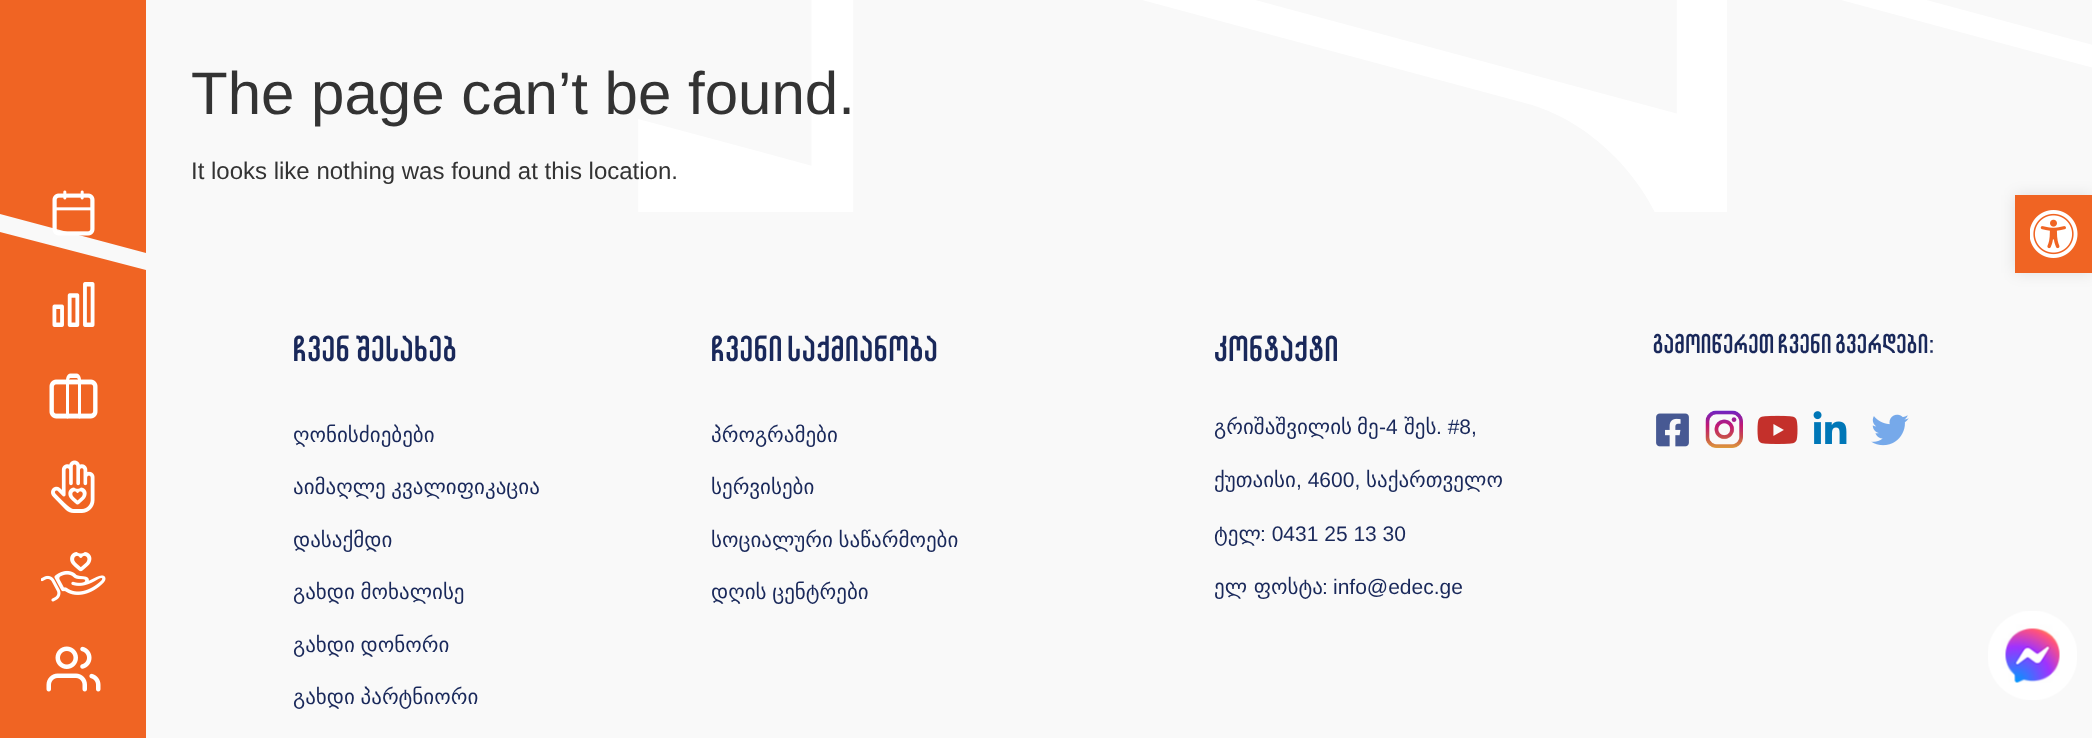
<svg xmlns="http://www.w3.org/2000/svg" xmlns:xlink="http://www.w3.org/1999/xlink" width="2092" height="738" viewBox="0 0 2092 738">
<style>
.cls-1{font:60px Liberation Sans;fill:#333333}
.cls-2{font:24px Liberation Sans;fill:#333333}
.cls-3{font:bold 36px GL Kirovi;fill:#19285a}
.cls-4{font:21px DejaVu Sans;fill:#19285a}
.cls-5{font:21px Liberation Sans;fill:#19285a}
.cls-6{font:bold 27px GL Kirovi;fill:#19285a}
</style>
<rect width="100%" height="100%" fill="#ffffff"/>
<image xlink:href="image0.png" x="146" y="0" width="1946" height="212"/>
<rect fill="#f9f9f9" x="0" y="212" width="2092" height="526"/>
<path fill="#f06423" d="M146 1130H0V232L146 270ZM146 253L0 214V0H146Z"/>
<image xlink:href="image1.png" x="52" y="190" width="43" height="46"/>
<image xlink:href="image2.png" x="52" y="282" width="43" height="45"/>
<image xlink:href="image3.png" x="49" y="373" width="49" height="46"/>
<image xlink:href="image4.png" x="51" y="460" width="44" height="53"/>
<image xlink:href="image5.png" x="41" y="552" width="65" height="50"/>
<image xlink:href="image6.png" x="46" y="646" width="55" height="46"/>
<image xlink:href="image7.png" x="1988" y="611" width="89" height="89"/>
<rect fill="#000000" fill-opacity="0.1" filter="blur(7.5px)" x="2015" y="195" width="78" height="78"/>
<rect fill="#f06423" x="2015" y="195" width="77" height="78"/>
<image xlink:href="image8.png" x="2030" y="210" width="48" height="48"/>
<image xlink:href="image9.png" x="1656" y="413" width="33" height="34"/>
<image xlink:href="image10.png" x="1705" y="410" width="38" height="38"/>
<image xlink:href="image11.png" x="1757" y="415" width="41" height="29"/>
<image xlink:href="image12.png" x="1813" y="411" width="34" height="33"/>
<image xlink:href="image13.png" x="1871" y="414" width="38" height="32"/>
<text class="cls-1" x="191" y="114">The page can’t be found.</text>
<text class="cls-2" x="191" y="179">It looks like nothing was found at this location.</text>
<text class="cls-3" x="293" y="361">ჩვენ შესახებ</text>
<text class="cls-4" x="293" y="442">ღონისძიებები</text>
<text class="cls-4" x="293" y="494" word-spacing="-1">აიმაღლე კვალიფიკაცია</text>
<text class="cls-4" x="293" y="547">დასაქმდი</text>
<text class="cls-4" x="293" y="599" word-spacing="-1">გახდი მოხალისე</text>
<text class="cls-4" x="293" y="652" word-spacing="-1">გახდი დონორი</text>
<text class="cls-4" x="293" y="704" word-spacing="-1">გახდი პარტნიორი</text>
<text class="cls-3" x="711" y="361">ჩვენი საქმიანობა</text>
<text class="cls-4" x="711" y="442">პროგრამები</text>
<text class="cls-4" x="711" y="494">სერვისები</text>
<text class="cls-4" x="711" y="547" word-spacing="-1">სოციალური საწარმოები</text>
<text class="cls-4" x="711" y="599" word-spacing="-1">დღის ცენტრები</text>
<text class="cls-3" x="1214" y="361">კონტაქტი</text>
<text class="cls-4" x="1214" y="434">გრიშაშვილის</text>
<text class="cls-4" x="1357" y="434">მე</text>
<text class="cls-5" x="1379" y="434">-4</text>
<text class="cls-4" x="1404" y="434">შეს</text>
<text class="cls-5" x="1436" y="434">. #8,</text>
<text class="cls-4" x="1214" y="487">ქუთაისი</text>
<text class="cls-5" x="1296" y="487">, 4600,</text>
<text class="cls-4" x="1366" y="487">საქართველო</text>
<text class="cls-4" x="1214" y="541">ტელ</text>
<text class="cls-5" x="1260" y="541">: 0431 25 13 30</text>
<text class="cls-4" x="1214" y="594">ელ ფოსტა</text>
<text class="cls-5" x="1322" y="594">:</text>
<text class="cls-5" x="1333" y="594">info@edec.ge</text>
<text class="cls-6" x="1653" y="353">გამოიწერეთ ჩვენი გვერდები:</text>
</svg>
